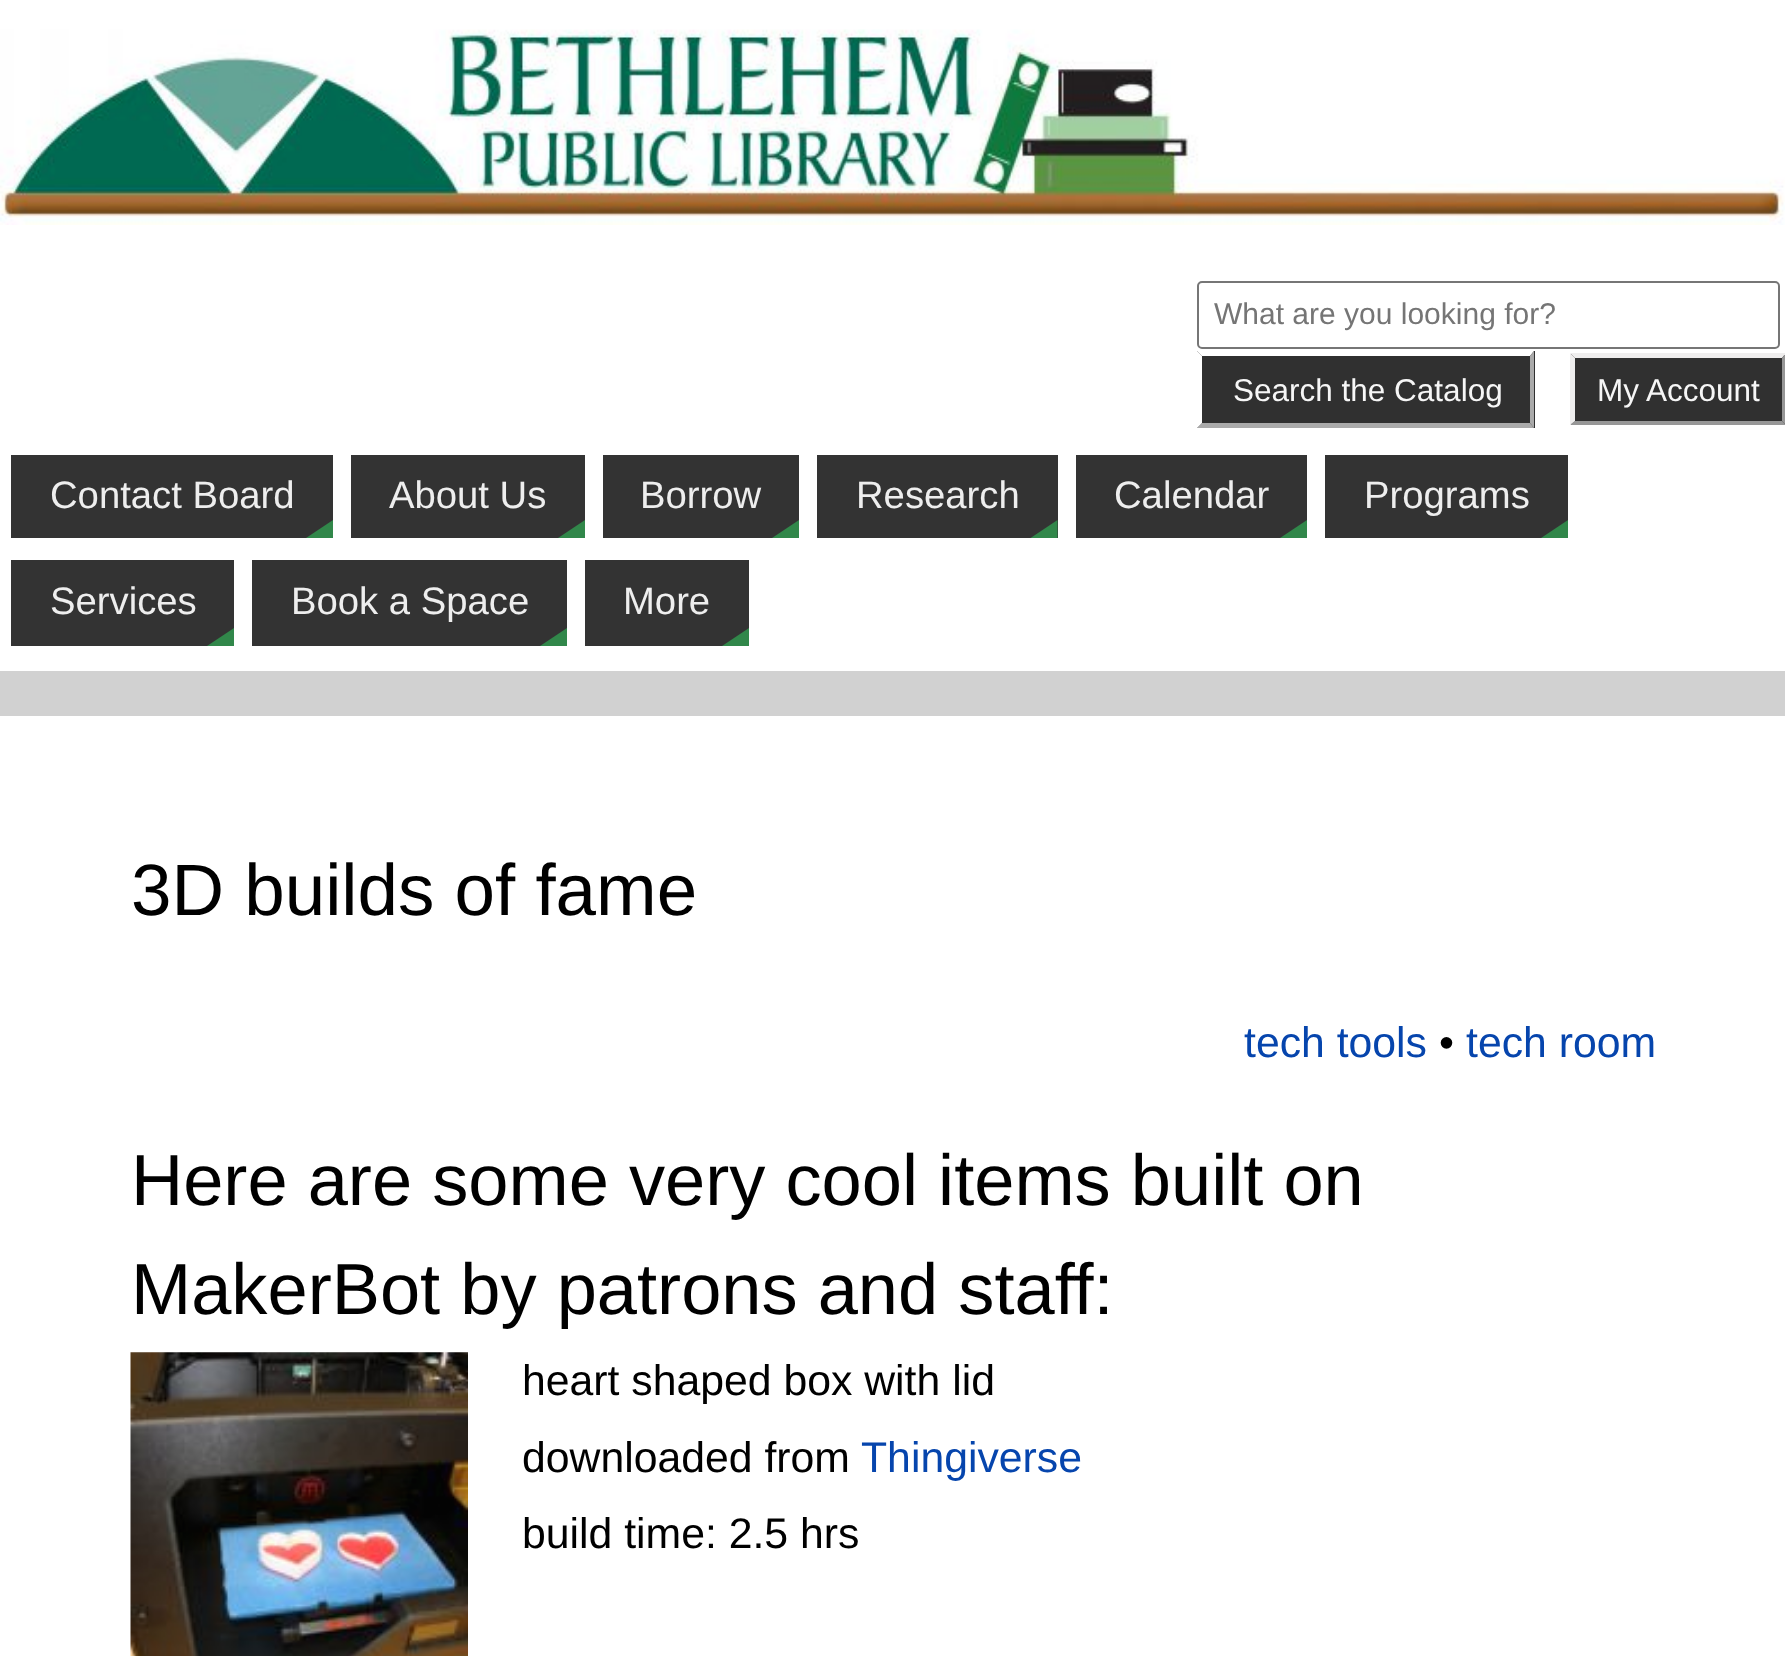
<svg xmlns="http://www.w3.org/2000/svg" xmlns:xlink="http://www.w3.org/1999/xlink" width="1785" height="1656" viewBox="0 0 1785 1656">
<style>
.cls-1{font:30px Liberation Sans;fill:#757575}
.cls-2{font:31.5px Liberation Sans;fill:#f6f6f6}
.cls-3{font:38.25px Liberation Sans;fill:#eeeeee}
.cls-4{font:72.75px Liberation Sans;fill:#000000}
.cls-5{font:42.75px Liberation Sans;fill:#0645ad}
.cls-6{font:42.75px Liberation Sans;fill:#000000}
.cls-7{font:72.25px Liberation Sans;fill:#000000}
</style>
<rect width="100%" height="100%" fill="#d1d1d1"/>
<rect fill="#ffffff" x="0" y="0" width="1785" height="671"/>
<image xlink:href="image0.png" x="0" y="29" width="1785" height="196"/>
<rect fill="none" stroke="#767676" stroke-width="2" x="1198" y="282" width="581" height="66" rx="4"/>
<rect fill="#303030" x="1197" y="351" width="338" height="77"/>
<path fill="#ffffff" d="M1197 351H1534L1530 356H1202Z"/>
<path fill="#aaaaaa" d="M1534 351V428L1530 423V356Z"/>
<path fill="#aaaaaa" d="M1534 428H1197L1202 423H1530Z"/>
<path fill="#ffffff" d="M1197 428V351L1202 356V423Z"/>
<rect fill="#303030" x="1571" y="354" width="214" height="71"/>
<path fill="#efeeee" d="M1570 353H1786L1782 358H1575Z"/>
<path fill="#979797" d="M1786 353V425L1782 421V358Z"/>
<path fill="#979797" d="M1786 425H1570L1575 421H1782Z"/>
<path fill="#efeeee" d="M1570 425V353L1575 358V421Z"/>
<rect fill="#333333" x="11" y="455" width="322" height="83"/>
<path fill="#31874a" d="M333 538H306L333 520Z"/>
<rect fill="#333333" x="351" y="455" width="234" height="83"/>
<path fill="#31874a" d="M585 538H558L585 520Z"/>
<rect fill="#333333" x="603" y="455" width="196" height="83"/>
<path fill="#31874a" d="M799 538H772L799 520Z"/>
<rect fill="#333333" x="817" y="455" width="241" height="83"/>
<path fill="#31874a" d="M1057.5 538H1030.5L1057.5 520Z"/>
<rect fill="#333333" x="1076" y="455" width="231" height="83"/>
<path fill="#31874a" d="M1307 538H1280L1307 520Z"/>
<rect fill="#333333" x="1325" y="455" width="243" height="83"/>
<path fill="#31874a" d="M1568 538H1541L1568 520Z"/>
<rect fill="#333333" x="11" y="560" width="223" height="86"/>
<path fill="#31874a" d="M234 646H207L234 628Z"/>
<rect fill="#333333" x="252" y="560" width="315" height="86"/>
<path fill="#31874a" d="M567 646H540L567 628Z"/>
<rect fill="#333333" x="585" y="560" width="164" height="86"/>
<path fill="#31874a" d="M749 646H722L749 628Z"/>
<rect fill="#ffffff" x="0" y="716" width="1785" height="940"/>
<image xlink:href="image1.png" x="130" y="1352" width="338" height="304"/>
<text class="cls-1" x="1214" y="324">What are you looking for?</text>
<text class="cls-2" x="1233" y="401">Search the Catalog</text>
<text class="cls-2" x="1597" y="401">My Account</text>
<text class="cls-3" x="50" y="508">Contact Board</text>
<text class="cls-3" x="389" y="508">About Us</text>
<text class="cls-3" x="640" y="508">Borrow</text>
<text class="cls-3" x="856" y="508">Research</text>
<text class="cls-3" x="1114" y="508">Calendar</text>
<text class="cls-3" x="1364" y="508">Programs</text>
<text class="cls-3" x="50" y="614">Services</text>
<text class="cls-3" x="291" y="614">Book a Space</text>
<text class="cls-3" x="623" y="614">More</text>
<text class="cls-4" x="131" y="915">3D builds of fame</text>
<text class="cls-5" x="1244" y="1057">tech tools</text>
<text class="cls-6" x="1439" y="1057">•</text>
<text class="cls-5" x="1466" y="1057">tech room</text>
<text class="cls-7"><tspan x="131" y="1205">Here are some very cool items built on</tspan><tspan x="131" y="1314">MakerBot by patrons and staff:</tspan></text>
<text class="cls-6"><tspan x="522" y="1395">heart shaped box with lid</tspan><tspan x="522" y="1472">downloaded from</tspan></text>
<text class="cls-5" x="861" y="1472">Thingiverse</text>
<text class="cls-6" x="522" y="1548">build time: 2.5 hrs</text>
</svg>
